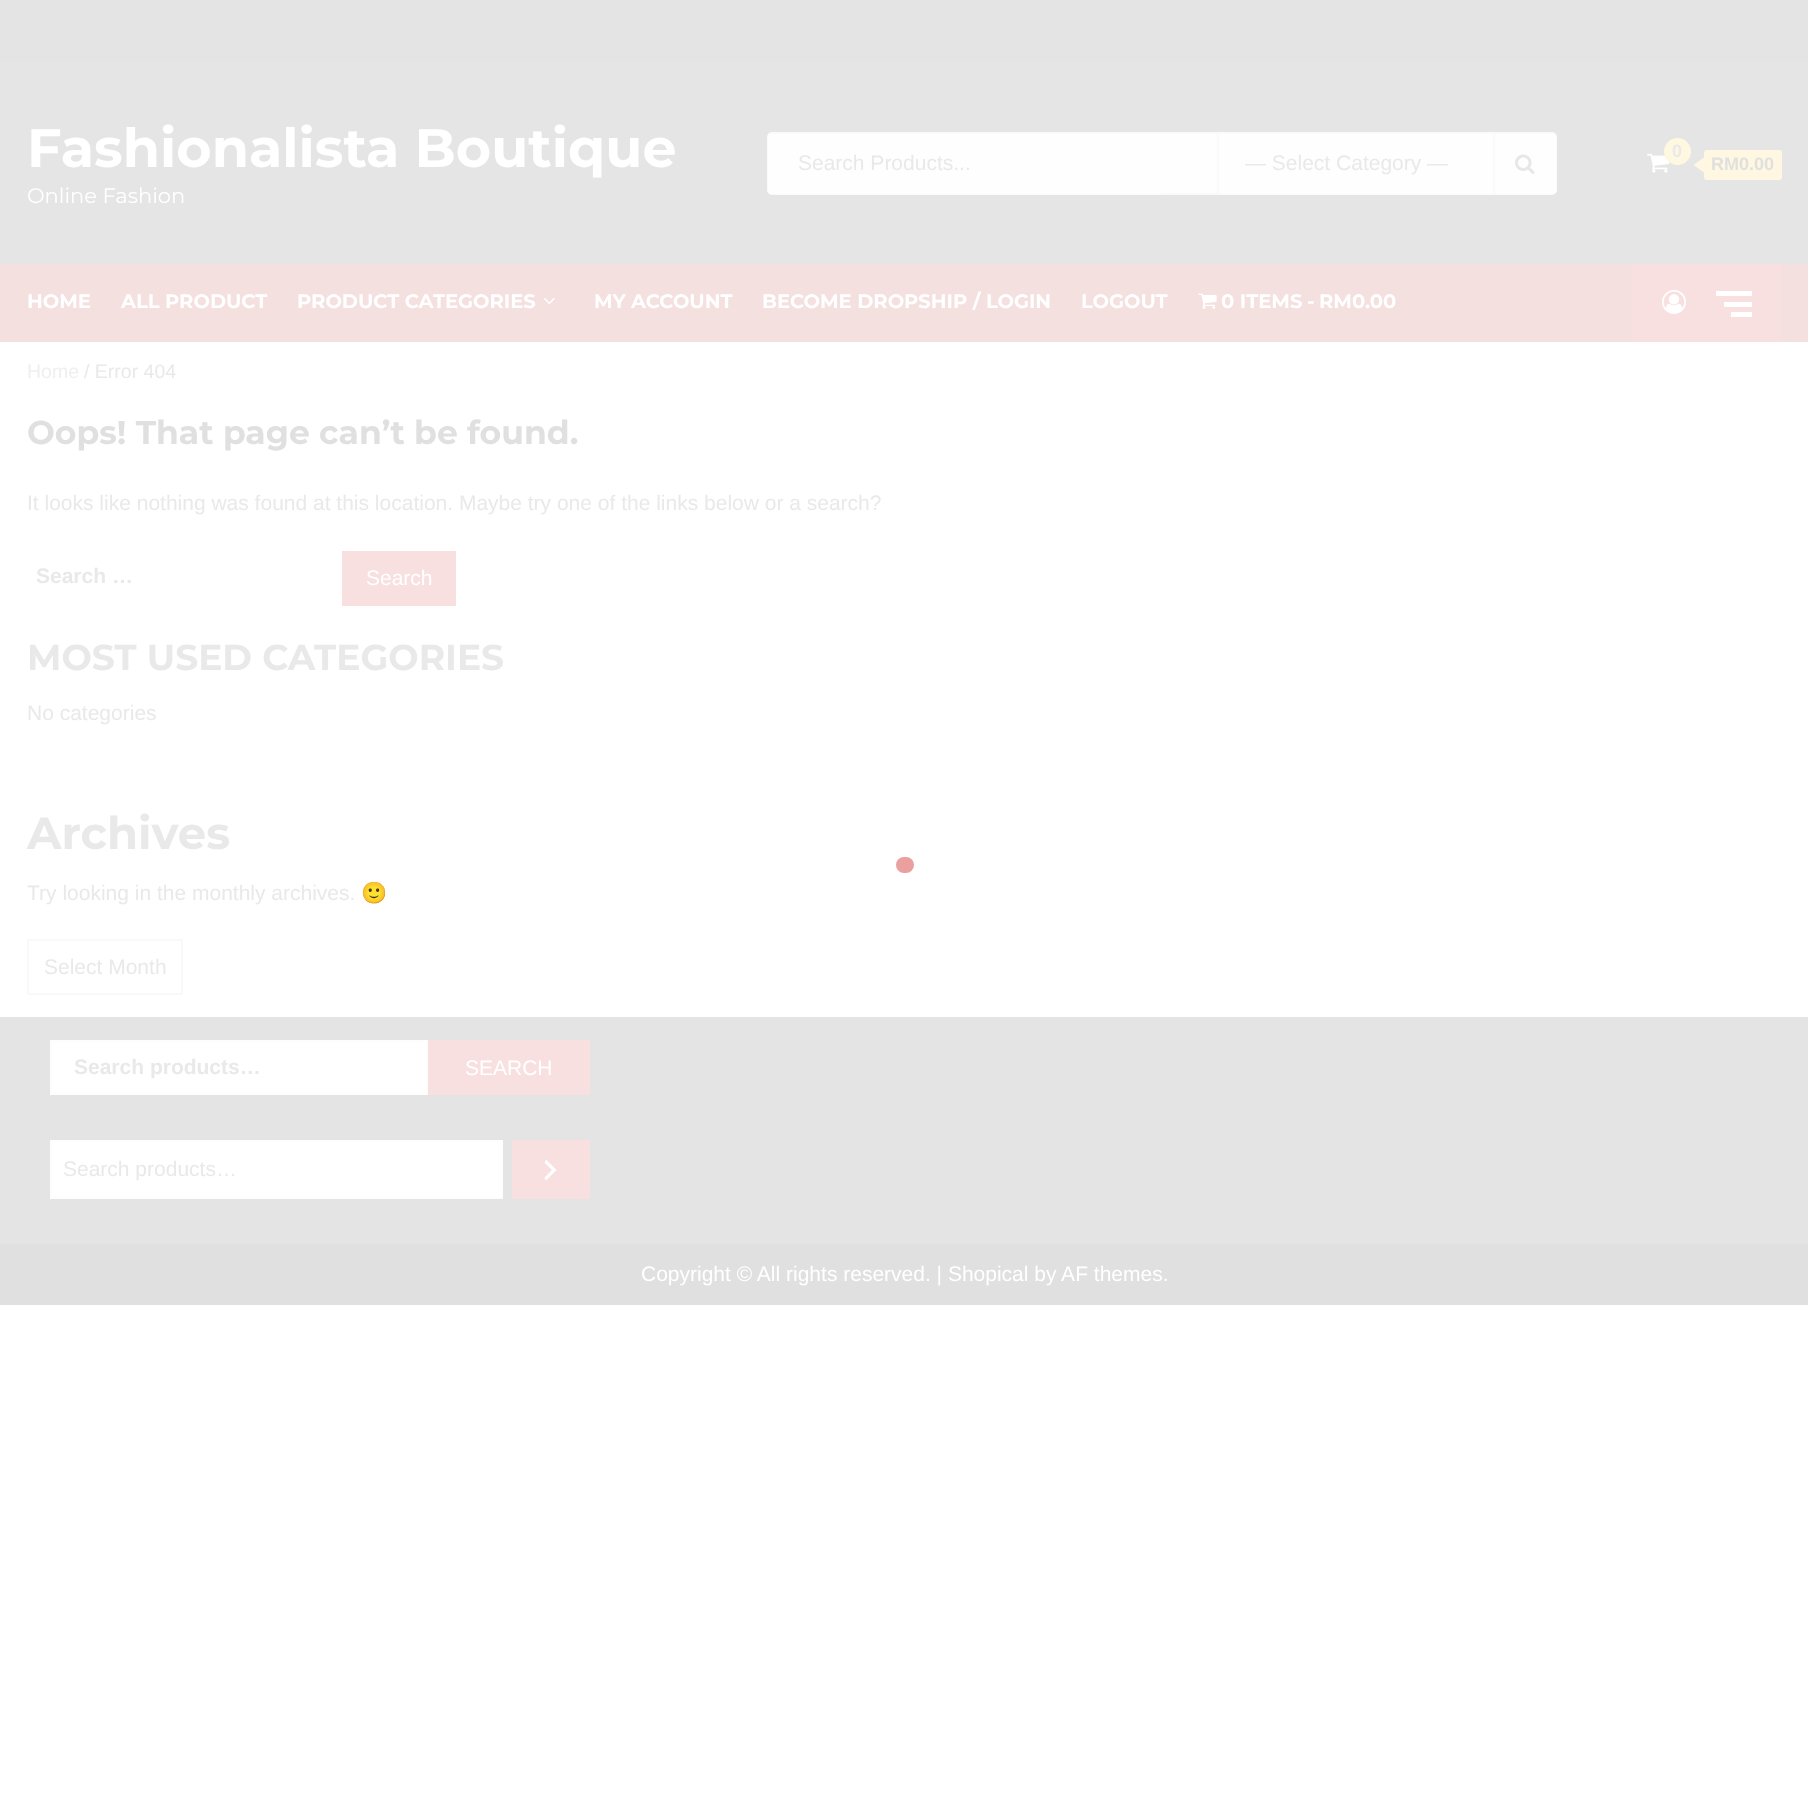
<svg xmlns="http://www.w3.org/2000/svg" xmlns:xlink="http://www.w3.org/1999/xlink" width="1808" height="1808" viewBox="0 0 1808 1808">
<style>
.cls-1{font:bold 54px Montserrat;fill:#ffffff}
.cls-2{font:21px Montserrat;fill:#ffffff}
.cls-3{font:21px Liberation Sans;fill:#e9e9e9}
.cls-4{font:bold 18px Liberation Sans;fill:#e9e9e9}
.cls-5{font:bold 18px Liberation Sans;fill:#e0e0e0}
.cls-6{font:bold 19.5px Montserrat;fill:#ffffff}
.cls-7{font:19.5px Liberation Sans;fill:#efefef}
.cls-8{font:19.5px Liberation Sans;fill:#e9e9e9}
.cls-9{font:bold 33px Montserrat;fill:#e0e0e0}
.cls-10{font:bold 21px Liberation Sans;fill:#e9e9e9}
.cls-11{font:21px Liberation Sans;fill:#ffffff}
.cls-12{font:bold 36px Montserrat;fill:#e9e9e9}
.cls-13{font:bold 45px Montserrat;fill:#e9e9e9}
.cls-14{font:21px Noto Color Emoji;fill:#e9e9e9}
</style>
<rect width="100%" height="100%" fill="#ffffff"/>
<rect fill="#e4e4e4" x="0" y="0" width="1808" height="62"/>
<rect fill="#e5e5e6" x="0" y="62" width="1808" height="202"/>
<rect fill="#fefefe" stroke="#fafafa" stroke-width="2" x="768" y="133" width="788" height="61" rx="4"/>
<path fill="#fefefe" d="M771 134H1161V194H771C769.5 194 768 192.5 768 191V137C768 135.5 769.5 134 771 134Z"/>
<rect fill="#fefefe" x="1219" y="193" width="274" height="1"/>
<rect fill="#fafafa" x="1217" y="134" width="2" height="60"/>
<path fill="#fefefe" d="M1493 134H1553C1554.5 134 1556 135.5 1556 137V191C1556 192.5 1554.5 194 1553 194H1493Z"/>
<rect fill="#fafafa" x="1493" y="134" width="2" height="60"/>
<image xlink:href="image0.png" x="1515" y="154" width="20" height="20"/>
<image xlink:href="image1.png" x="1647" y="153" width="23" height="20"/>
<circle fill="#fff8e1" cx="1677.5" cy="151.5" r="13.5"/>
<rect fill="#fff7e1" x="1704" y="150" width="78" height="30" rx="3"/>
<path fill="#fff7e1" d="M1704 157.5V172.5L1693.5 165Z"/>
<rect fill="#f5e0e0" x="0" y="264" width="1808" height="78"/>
<image xlink:href="image2.png" x="543" y="297" width="12" height="8"/>
<image xlink:href="image3.png" x="1198" y="293" width="19" height="16"/>
<rect fill="#f9e0e0" x="1632" y="264" width="150" height="78"/>
<image xlink:href="image4.png" x="1662" y="289" width="24" height="25"/>
<rect fill="#ffffff" x="1716" y="291" width="36" height="5"/>
<rect fill="#ffffff" x="1724" y="302" width="28" height="5"/>
<rect fill="#ffffff" x="1731" y="312" width="21" height="5"/>
<rect fill="#f9e0e0" x="342" y="551" width="114" height="55"/>
<rect fill="none" stroke="#f9f9f9" stroke-width="2" x="28" y="940" width="154" height="54"/>
<rect fill="#e4e4e5" x="0" y="1017" width="1808" height="227"/>
<rect fill="#ffffff" stroke="#fdfdfd" stroke-width="2" x="51" y="1041" width="376" height="53"/>
<rect fill="#f9e0e0" x="428" y="1040" width="162" height="55"/>
<rect fill="#ffffff" stroke="#fdfdfd" stroke-width="2" x="51" y="1141" width="451" height="57"/>
<rect fill="#f9e0e0" x="512" y="1140" width="78" height="59"/>
<path fill="#ffffff" d="M544.5 1177.5L552 1170L544.5 1162.5L546 1159.5L556.5 1170L546 1180.5Z"/>
<rect fill="#e0e0e0" x="0" y="1244" width="1808" height="61"/>
<rect fill="#eba0a0" x="896" y="857" width="18" height="16" rx="8"/>
<text class="cls-1" x="27" y="167">Fashionalista Boutique</text>
<text class="cls-2" x="27" y="203">Online Fashion</text>
<text class="cls-3" x="798" y="170">Search Products...</text>
<text class="cls-3" x="1245" y="170">— Select Category —</text>
<text class="cls-4" x="1672" y="157">0</text>
<text class="cls-5" x="1711" y="170">RM0.00</text>
<text class="cls-6" x="27" y="308">HOME</text>
<text class="cls-6" x="121" y="308">ALL PRODUCT</text>
<text class="cls-6" x="297" y="308">PRODUCT CATEGORIES</text>
<text class="cls-6" x="594" y="308">MY ACCOUNT</text>
<text class="cls-6" x="762" y="308">BECOME DROPSHIP / LOGIN</text>
<text class="cls-6" x="1081" y="308">LOGOUT</text>
<text class="cls-6" x="1221" y="308">0 ITEMS</text>
<text class="cls-6" x="1307" y="308">-</text>
<text class="cls-6" x="1319" y="308">RM0.00</text>
<text class="cls-7" x="27" y="378">Home</text>
<text class="cls-8" x="84" y="378">/ Error 404</text>
<text class="cls-9" x="27" y="444">Oops! That page can’t be found.</text>
<text class="cls-3" x="27" y="510">It looks like nothing was found at this location. Maybe try one of the links below or a search?</text>
<text class="cls-10" x="36" y="583">Search …</text>
<text class="cls-11" x="366" y="585">Search</text>
<text class="cls-12" x="27" y="670">MOST USED CATEGORIES</text>
<text class="cls-3" x="27" y="720">No categories</text>
<text class="cls-13" x="27" y="849">Archives</text>
<text class="cls-3" x="27" y="900">Try looking in the monthly archives.</text>
<text class="cls-14" x="361" y="900">🙂</text>
<text class="cls-3" x="44" y="974">Select Month</text>
<text class="cls-10" x="74" y="1074">Search products…</text>
<text class="cls-11" x="465" y="1075">SEARCH</text>
<text class="cls-3" x="63" y="1176">Search products…</text>
<text class="cls-11" x="641" y="1281">Copyright © All rights reserved. | Shopical by AF themes.</text>
</svg>
